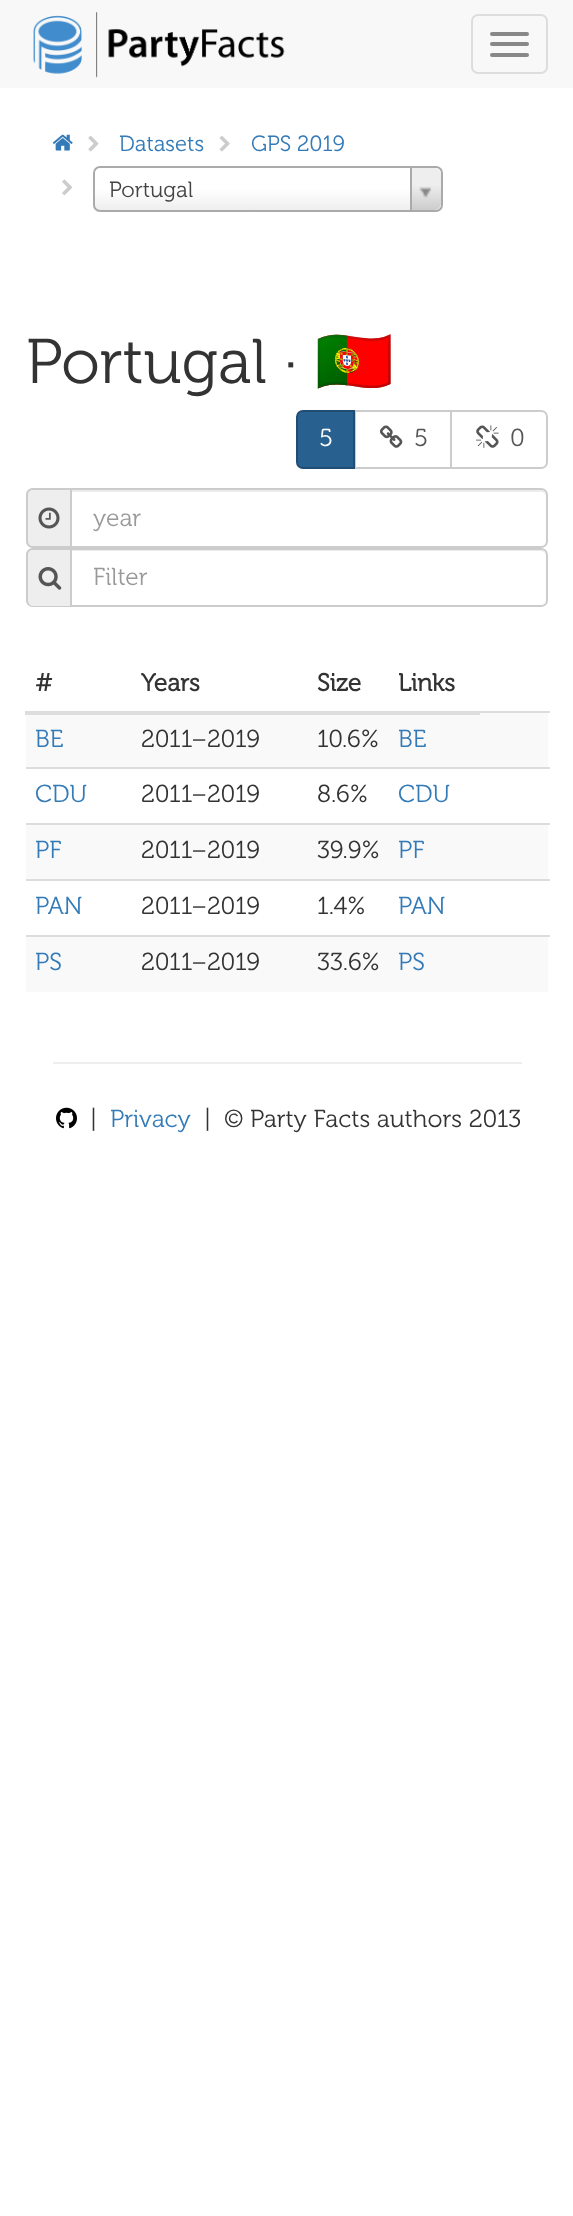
<svg xmlns="http://www.w3.org/2000/svg" xmlns:xlink="http://www.w3.org/1999/xlink" width="573" height="2216" viewBox="0 0 573 2216">
<style>
.cls-1{font:22px 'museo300';fill:#337ab7}
.cls-2{font:22px 'museo300';fill:#444444}
.cls-3{font:63px 'museo300';fill:#333333}
.cls-4{font:63px Noto Color Emoji;fill:#333333}
.cls-5{font:24.5px 'museo300';fill:#ffffff}
.cls-6{font:24.5px 'museo300';fill:#555555}
.cls-7{font:24.5px 'museo300';fill:#999999}
.cls-8{font:bold 24.5px 'museo300';fill:#333333}
.cls-9{font:24.5px 'museo300';fill:#337ab7}
.cls-10{font:24.5px 'museo300';fill:#333333}
</style>
<defs>
<linearGradient id="g1" gradientUnits="userSpaceOnUse" x1="268" y1="210" x2="268" y2="168"><stop offset="0" stop-color="#eeeeee"/><stop offset="0.5" stop-color="#ffffff"/></linearGradient>
<linearGradient id="g2" gradientUnits="userSpaceOnUse" x1="426" y1="210" x2="426" y2="168"><stop offset="0" stop-color="#cccccc"/><stop offset="0.6" stop-color="#eeeeee"/></linearGradient>
</defs>
<rect width="100%" height="100%" fill="#ffffff"/>
<rect fill="#f8f8f8" x="0" y="0" width="573" height="88"/>
<image xlink:href="image0.png" x="33" y="12" width="252" height="66"/>
<rect fill="none" stroke="#dddddd" stroke-width="2" x="472" y="15" width="75" height="58" rx="6"/>
<rect fill="#888888" x="490" y="32" width="39" height="4" rx="2"/>
<rect fill="#888888" x="490" y="42" width="39" height="4" rx="2"/>
<rect fill="#888888" x="490" y="53" width="39" height="4" rx="2"/>
<image xlink:href="image1.png" x="52" y="134" width="21" height="17"/>
<image xlink:href="image2.png" x="88" y="135" width="11" height="17"/>
<image xlink:href="image3.png" x="219" y="135" width="11" height="17"/>
<image xlink:href="image4.png" x="62" y="179" width="11" height="17"/>
<rect fill="url(#g1)" x="95" y="168" width="346" height="42" rx="5"/>
<rect fill="none" stroke="#aaaaaa" stroke-width="2" x="94" y="167" width="348" height="44" rx="6"/>
<path fill="url(#g2)" d="M410 168H434C438 168 441 171 441 175V203C441 207 438 210 434 210H410Z"/>
<rect fill="#aaaaaa" x="410" y="168" width="2" height="42"/>
<image xlink:href="image5.png" x="419" y="187" width="13" height="11"/>
<rect fill="none" stroke="#cccccc" stroke-width="2" x="355" y="411" width="96" height="57"/>
<path fill="#286090" stroke="#204d74" stroke-width="2" d="M303 411H354V468H303C299.5 468 297 465.5 297 462V417C297 413.5 299.5 411 303 411Z"/>
<image xlink:href="image6.png" x="380" y="425" width="23" height="23"/>
<path fill="none" stroke="#cccccc" stroke-width="2" d="M451 411H541C544.5 411 547 413.5 547 417V462C547 465.5 544.5 468 541 468H451Z"/>
<image xlink:href="image7.png" x="476" y="425" width="23" height="23"/>
<path fill="#eeeeee" d="M33 488H70V548H33C29 548 26 545 26 541V495C26 491 29 488 33 488Z"/>
<path fill="#cccccc" fill-rule="evenodd" d="M33 488H70V548H33C29 548 26 545 26 541V495C26 491 29 488 33 488ZM33 490H70V546H33C30 546 28 544 28 541V495C28 492 30 490 33 490Z"/>
<image xlink:href="image8.png" x="38" y="507" width="22" height="22"/>
<path fill="#ececec" d="M72 492H541C544 492 546 494 546 497V495C546 492 544 490 541 490H72Z"/>
<path fill="none" stroke="#cccccc" stroke-width="2" d="M71 489H541C544.5 489 547 491.5 547 495V541C547 544.5 544.5 547 541 547H71Z"/>
<path fill="#eeeeee" d="M33 548H70V607H33C29 607 26 604 26 600V555C26 551 29 548 33 548Z"/>
<path fill="#cccccc" fill-rule="evenodd" d="M33 548H70V607H33C29 607 26 604 26 600V555C26 551 29 548 33 548ZM33 550H70V606H33C30 606 28 603 28 600V555C28 552 30 550 33 550Z"/>
<image xlink:href="image9.png" x="38" y="567" width="24" height="23"/>
<path fill="#ececec" d="M72 551H541C544 551 546 554 546 556V555C546 552 544 550 541 550H72Z"/>
<path fill="none" stroke="#cccccc" stroke-width="2" d="M71 549H541C544.5 549 547 551.5 547 555V600C547 603.5 544.5 606 541 606H71Z"/>
<rect fill="#f9f9f9" x="26" y="713" width="522" height="54"/>
<rect fill="#dddddd" x="476" y="711" width="74" height="2"/>
<rect fill="#dddddd" x="25" y="711" width="455" height="4"/>
<rect fill="#dddddd" x="26" y="767" width="524" height="2"/>
<rect fill="#f9f9f9" x="26" y="825" width="522" height="54"/>
<rect fill="#dddddd" x="26" y="823" width="524" height="2"/>
<rect fill="#dddddd" x="26" y="879" width="524" height="2"/>
<rect fill="#f9f9f9" x="26" y="937" width="522" height="55"/>
<rect fill="#dddddd" x="26" y="935" width="524" height="2"/>
<rect fill="#eeeeee" x="53" y="1062" width="469" height="2"/>
<image xlink:href="image10.png" x="56" y="1107" width="21" height="22"/>
<text class="cls-1" x="119" y="151">Datasets</text>
<text class="cls-1" x="251" y="151">GPS 2019</text>
<text class="cls-2" x="109" y="197">Portugal</text>
<text class="cls-3" x="26" y="383">Portugal ·</text>
<text class="cls-4" x="315" y="383">🇵🇹</text>
<text class="cls-5" x="319" y="446">5</text>
<text class="cls-6" x="414" y="446">5</text>
<text class="cls-6" x="510" y="446">0</text>
<text class="cls-7" x="93" y="526">year</text>
<text class="cls-7" x="93" y="585">Filter</text>
<text class="cls-8" x="35" y="691">#</text>
<text class="cls-8" x="141" y="691">Years</text>
<text class="cls-8" x="317" y="691">Size</text>
<text class="cls-8" x="398" y="691">Links</text>
<text class="cls-9" x="35" y="747">BE</text>
<text class="cls-10" x="141" y="747">2011–2019</text>
<text class="cls-10" x="317" y="747">10.6%</text>
<text class="cls-9" x="398" y="747">BE</text>
<text class="cls-9" x="35" y="802">CDU</text>
<text class="cls-10" x="141" y="802">2011–2019</text>
<text class="cls-10" x="317" y="802">8.6%</text>
<text class="cls-9" x="398" y="802">CDU</text>
<text class="cls-9" x="35" y="858">PF</text>
<text class="cls-10" x="141" y="858">2011–2019</text>
<text class="cls-10" x="317" y="858">39.9%</text>
<text class="cls-9" x="398" y="858">PF</text>
<text class="cls-9" x="35" y="914">PAN</text>
<text class="cls-10" x="141" y="914">2011–2019</text>
<text class="cls-10" x="317" y="914">1.4%</text>
<text class="cls-9" x="398" y="914">PAN</text>
<text class="cls-9" x="35" y="970">PS</text>
<text class="cls-10" x="141" y="970">2011–2019</text>
<text class="cls-10" x="317" y="970">33.6%</text>
<text class="cls-9" x="398" y="970">PS</text>
<text class="cls-10" x="90" y="1127">|</text>
<text class="cls-9" x="110" y="1127">Privacy</text>
<text class="cls-10" x="204" y="1127">|</text>
<text class="cls-10" x="224" y="1127">© Party Facts authors 2013</text>
</svg>
